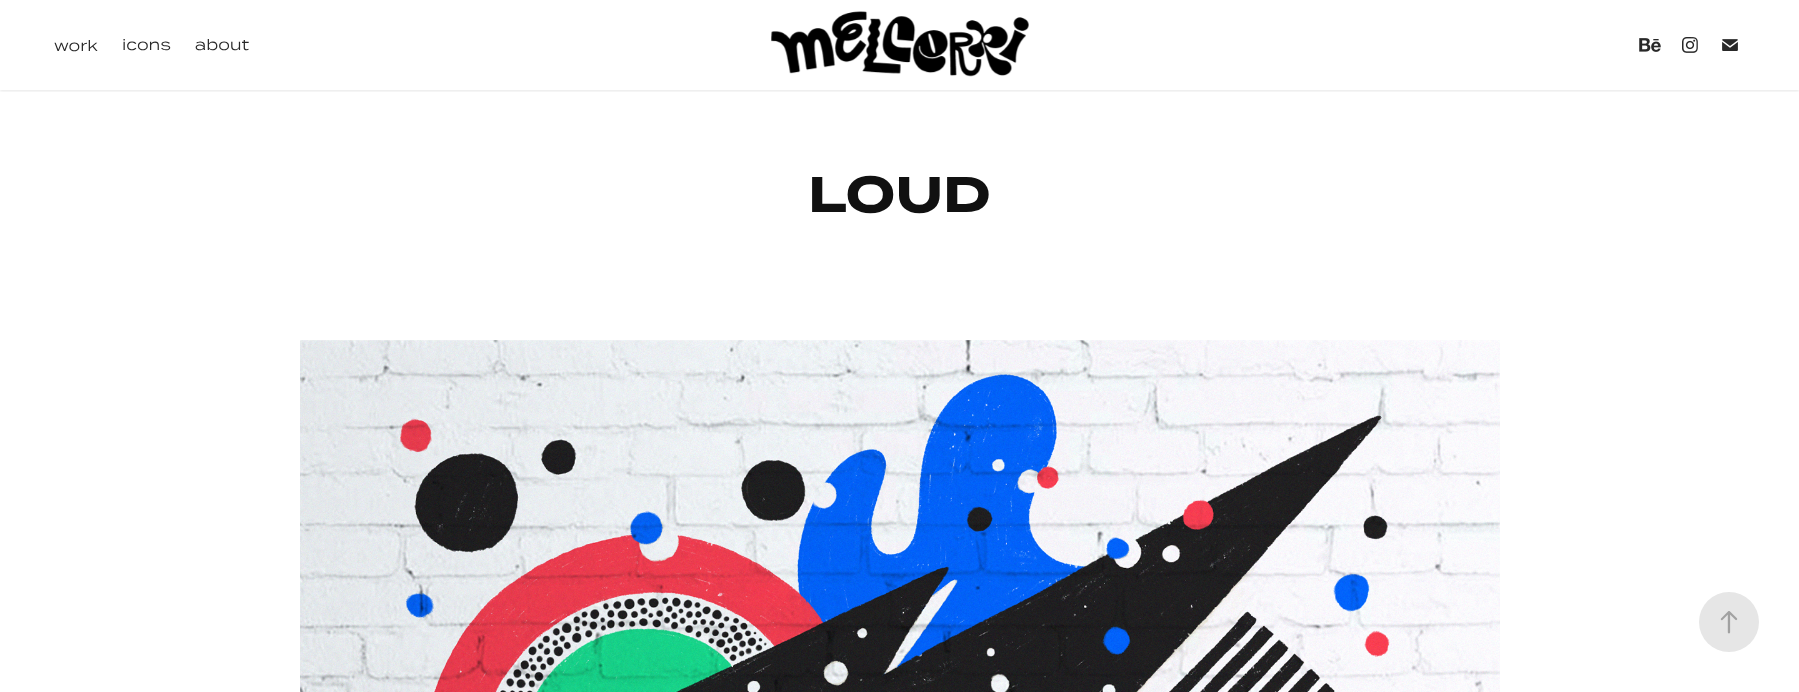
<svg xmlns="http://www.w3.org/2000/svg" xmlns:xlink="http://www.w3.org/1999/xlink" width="1799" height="692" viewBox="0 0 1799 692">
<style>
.cls-1{font:15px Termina;fill:#282828}
.cls-2{font:bold 50px Termina;fill:#111111}
</style>
<defs>
<clipPath id="clip1"><rect x="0" y="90" width="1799" height="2"/></clipPath>
</defs>
<rect width="100%" height="100%" fill="#ffffff"/>
<g clip-path="url(#clip1)">
<rect fill="#000000" fill-opacity="0.1" filter="blur(1.5px)" x="0" y="1" width="1799" height="90"/>
</g>
<image xlink:href="image0.png" x="771" y="11" width="258" height="66"/>
<image xlink:href="image1.png" x="1639" y="38" width="22" height="14"/>
<image xlink:href="image2.png" x="1682" y="37" width="16" height="16"/>
<image xlink:href="image3.png" x="1722" y="39" width="16" height="12"/>
<image xlink:href="image4.png" x="300" y="340" width="1200" height="352"/>
<circle fill="#e6e6e6" cx="1729" cy="622" r="30"/>
<image xlink:href="image5.png" x="1720" y="611" width="18" height="23"/>
<text class="cls-1" x="54" y="51">work</text>
<text class="cls-1" x="122" y="50">icons</text>
<text class="cls-1" x="195" y="50">about</text>
<text class="cls-2" x="808" y="212">LOUD</text>
</svg>
